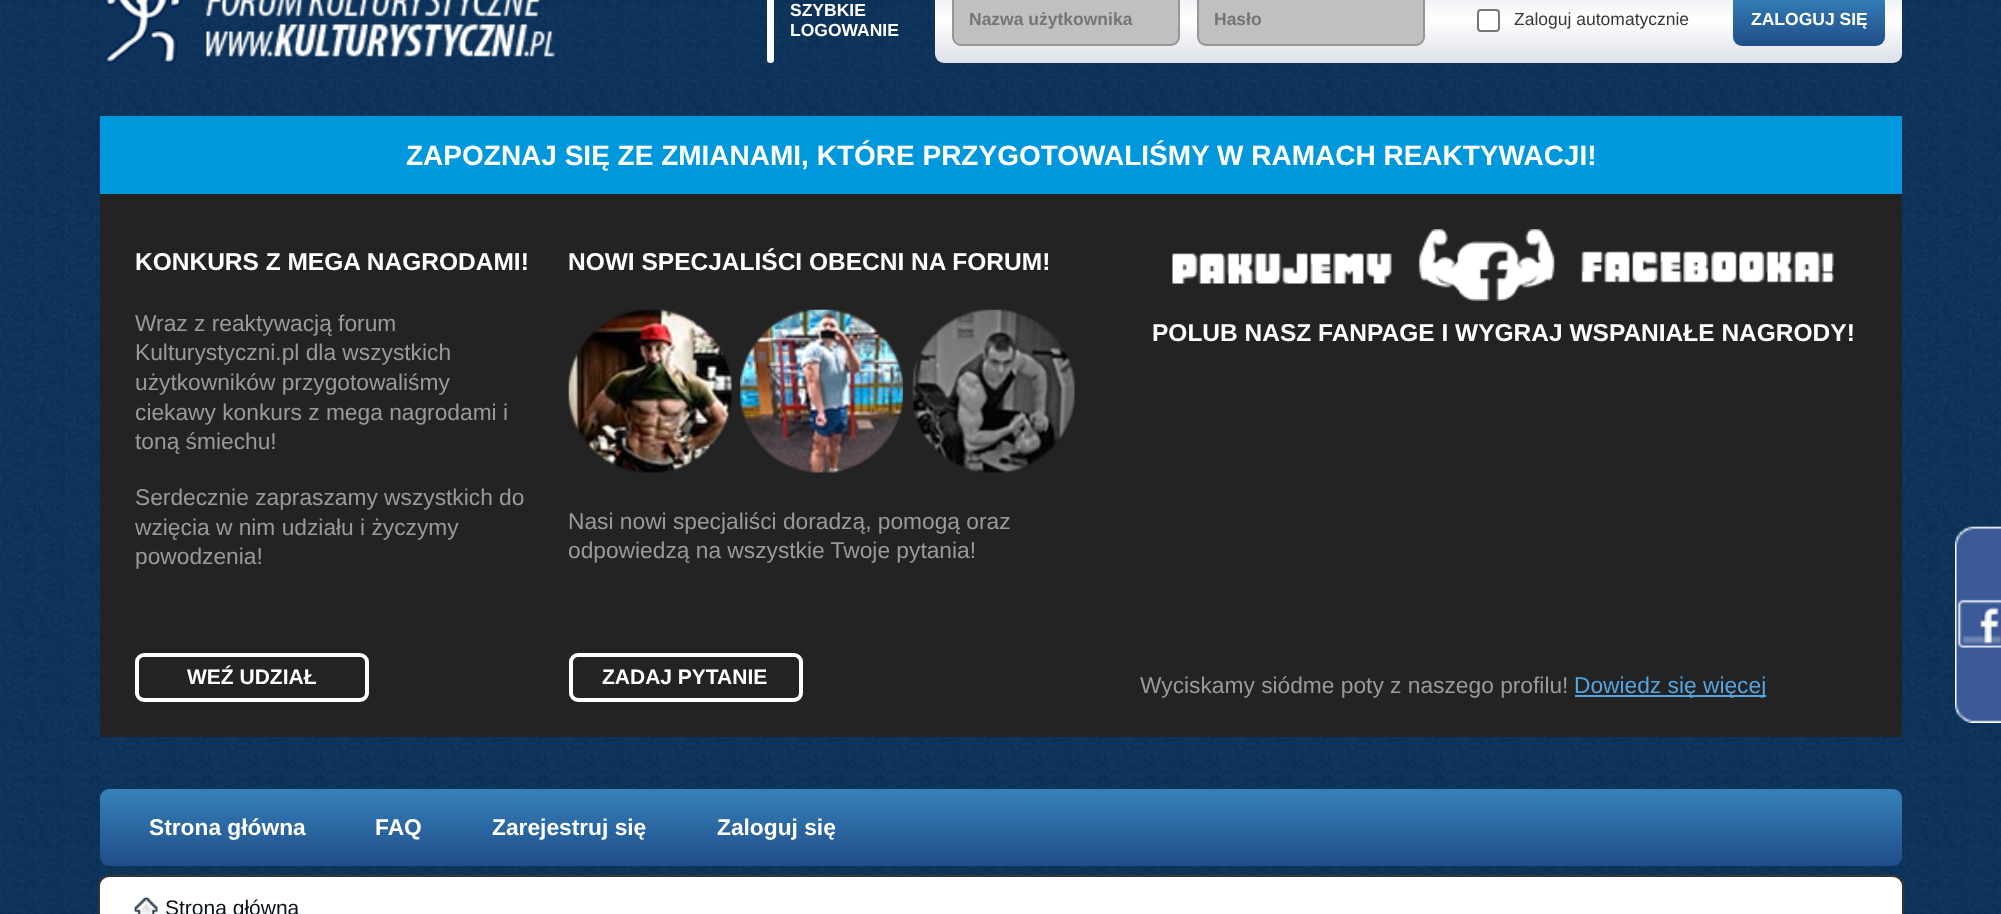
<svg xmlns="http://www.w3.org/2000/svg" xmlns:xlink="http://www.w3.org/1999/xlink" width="2001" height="914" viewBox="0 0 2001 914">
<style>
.cls-1{font:bold 17.5px Liberation Sans;fill:#ffffff}
.cls-2{font:bold 17.5px Liberation Sans;fill:#757575}
.cls-3{font:17.5px Liberation Sans;fill:#393939}
.cls-4{font:bold 28px Liberation Sans;fill:#ffffff}
.cls-5{font:bold 24.5px Liberation Sans;fill:#ffffff}
.cls-6{font:22.75px Liberation Sans;fill:#9a9a9a}
.cls-7{font:bold 21px Liberation Sans;fill:#ffffff}
.cls-8{font:22.75px Liberation Sans;fill:#54a4e1}
.cls-9{font:bold 22.75px Liberation Sans;fill:#ffffff}
.cls-10{font:21px Liberation Sans;fill:#0a1119}
</style>
<defs>
<linearGradient id="g1" gradientUnits="userSpaceOnUse" x1="1418" y1="-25" x2="1418" y2="63"><stop offset="0" stop-color="#dde0e8"/><stop offset="0.5" stop-color="#ffffff"/><stop offset="1" stop-color="#dde0e8"/></linearGradient>
<linearGradient id="g2" gradientUnits="userSpaceOnUse" x1="1809" y1="-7" x2="1809" y2="46"><stop offset="0" stop-color="#3682ba"/><stop offset="1" stop-color="#204d89"/></linearGradient>
<linearGradient id="g3" gradientUnits="userSpaceOnUse" x1="1001" y1="789" x2="1001" y2="866"><stop offset="0" stop-color="#3682ba"/><stop offset="1" stop-color="#204d89"/></linearGradient>
</defs>
<rect width="100%" height="100%" fill="#ffffff"/>
<image xlink:href="image0.png" x="0" y="0" width="2001" height="914"/>
<image xlink:href="image1.png" x="100" y="0" width="455" height="63"/>
<rect fill="#ffffff" x="767" y="-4" width="7" height="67" rx="3.5"/>
<rect fill="url(#g1)" x="935" y="-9" width="967" height="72" rx="9"/>
<rect fill="#c0c0c0" stroke="#969697" stroke-width="2" x="953" y="-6" width="226" height="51" rx="8"/>
<rect fill="#c0c0c0" stroke="#969697" stroke-width="2" x="1198" y="-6" width="226" height="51" rx="8"/>
<rect fill="#ffffff" stroke="#767676" stroke-width="2" x="1478" y="10" width="21" height="21" rx="3"/>
<rect fill="url(#g2)" x="1733" y="-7" width="152" height="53" rx="9"/>
<rect fill="#0098dc" x="100" y="116" width="1802" height="78"/>
<rect fill="#232323" x="100" y="194" width="1802" height="543"/>
<rect fill="none" stroke="#ffffff" stroke-width="4" x="137" y="655" width="230" height="45" rx="7"/>
<image xlink:href="image2.png" x="568" y="309" width="164" height="164"/>
<image xlink:href="image3.png" x="740" y="309" width="163" height="164"/>
<image xlink:href="image4.png" x="912" y="309" width="163" height="164"/>
<rect fill="none" stroke="#ffffff" stroke-width="4" x="571" y="655" width="230" height="45" rx="7"/>
<image xlink:href="image5.png" x="1172" y="229" width="662" height="72"/>
<rect fill="#54a4e1" x="1575" y="695" width="191" height="2"/>
<image xlink:href="image6.png" x="1955" y="526" width="46" height="197"/>
<rect fill="url(#g3)" x="100" y="789" width="1802" height="77" rx="9"/>
<rect fill="#ffffff" stroke="#363636" stroke-width="2" x="99" y="876" width="1804" height="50" rx="10"/>
<image xlink:href="image7.png" x="134" y="897" width="24" height="17"/>
<text class="cls-1"><tspan x="790" y="16">SZYBKIE</tspan><tspan x="790" y="36">LOGOWANIE</tspan></text>
<text class="cls-2" x="969" y="25">Nazwa użytkownika</text>
<text class="cls-2" x="1214" y="25">Hasło</text>
<text class="cls-3" x="1514" y="25">Zaloguj automatycznie</text>
<text class="cls-1" x="1751" y="25">ZALOGUJ SIĘ</text>
<text class="cls-4" x="406" y="165">ZAPOZNAJ SIĘ ZE ZMIANAMI, KTÓRE PRZYGOTOWALIŚMY W RAMACH REAKTYWACJI!</text>
<text class="cls-5" x="135" y="270">KONKURS Z MEGA NAGRODAMI!</text>
<text class="cls-6"><tspan x="135" y="331">Wraz z reaktywacją forum</tspan><tspan x="135" y="360">Kulturystyczni.pl dla wszystkich</tspan><tspan x="135" y="390">użytkowników przygotowaliśmy</tspan><tspan x="135" y="420">ciekawy konkurs z mega nagrodami i</tspan><tspan x="135" y="449">toną śmiechu!</tspan></text>
<text class="cls-6"><tspan x="135" y="505">Serdecznie zapraszamy wszystkich do</tspan><tspan x="135" y="535">wzięcia w nim udziału i życzymy</tspan><tspan x="135" y="564">powodzenia!</tspan></text>
<text class="cls-7" x="187" y="684">WEŹ UDZIAŁ</text>
<text class="cls-5" x="568" y="270">NOWI SPECJALIŚCI OBECNI NA FORUM!</text>
<text class="cls-6"><tspan x="568" y="529">Nasi nowi specjaliści doradzą, pomogą oraz</tspan><tspan x="568" y="558">odpowiedzą na wszystkie Twoje pytania!</tspan></text>
<text class="cls-7" x="602" y="684">ZADAJ PYTANIE</text>
<text class="cls-5" x="1152" y="341">POLUB NASZ FANPAGE I WYGRAJ WSPANIAŁE NAGRODY!</text>
<text class="cls-6" x="1140" y="693">Wyciskamy siódme poty z naszego profilu!</text>
<text class="cls-8" x="1574" y="693">Dowiedz się więcej</text>
<text class="cls-9" x="149" y="835">Strona główna</text>
<text class="cls-9" x="375" y="835">FAQ</text>
<text class="cls-9" x="492" y="835">Zarejestruj się</text>
<text class="cls-9" x="717" y="835">Zaloguj się</text>
<text class="cls-10" x="165" y="915">Strona główna</text>
</svg>
